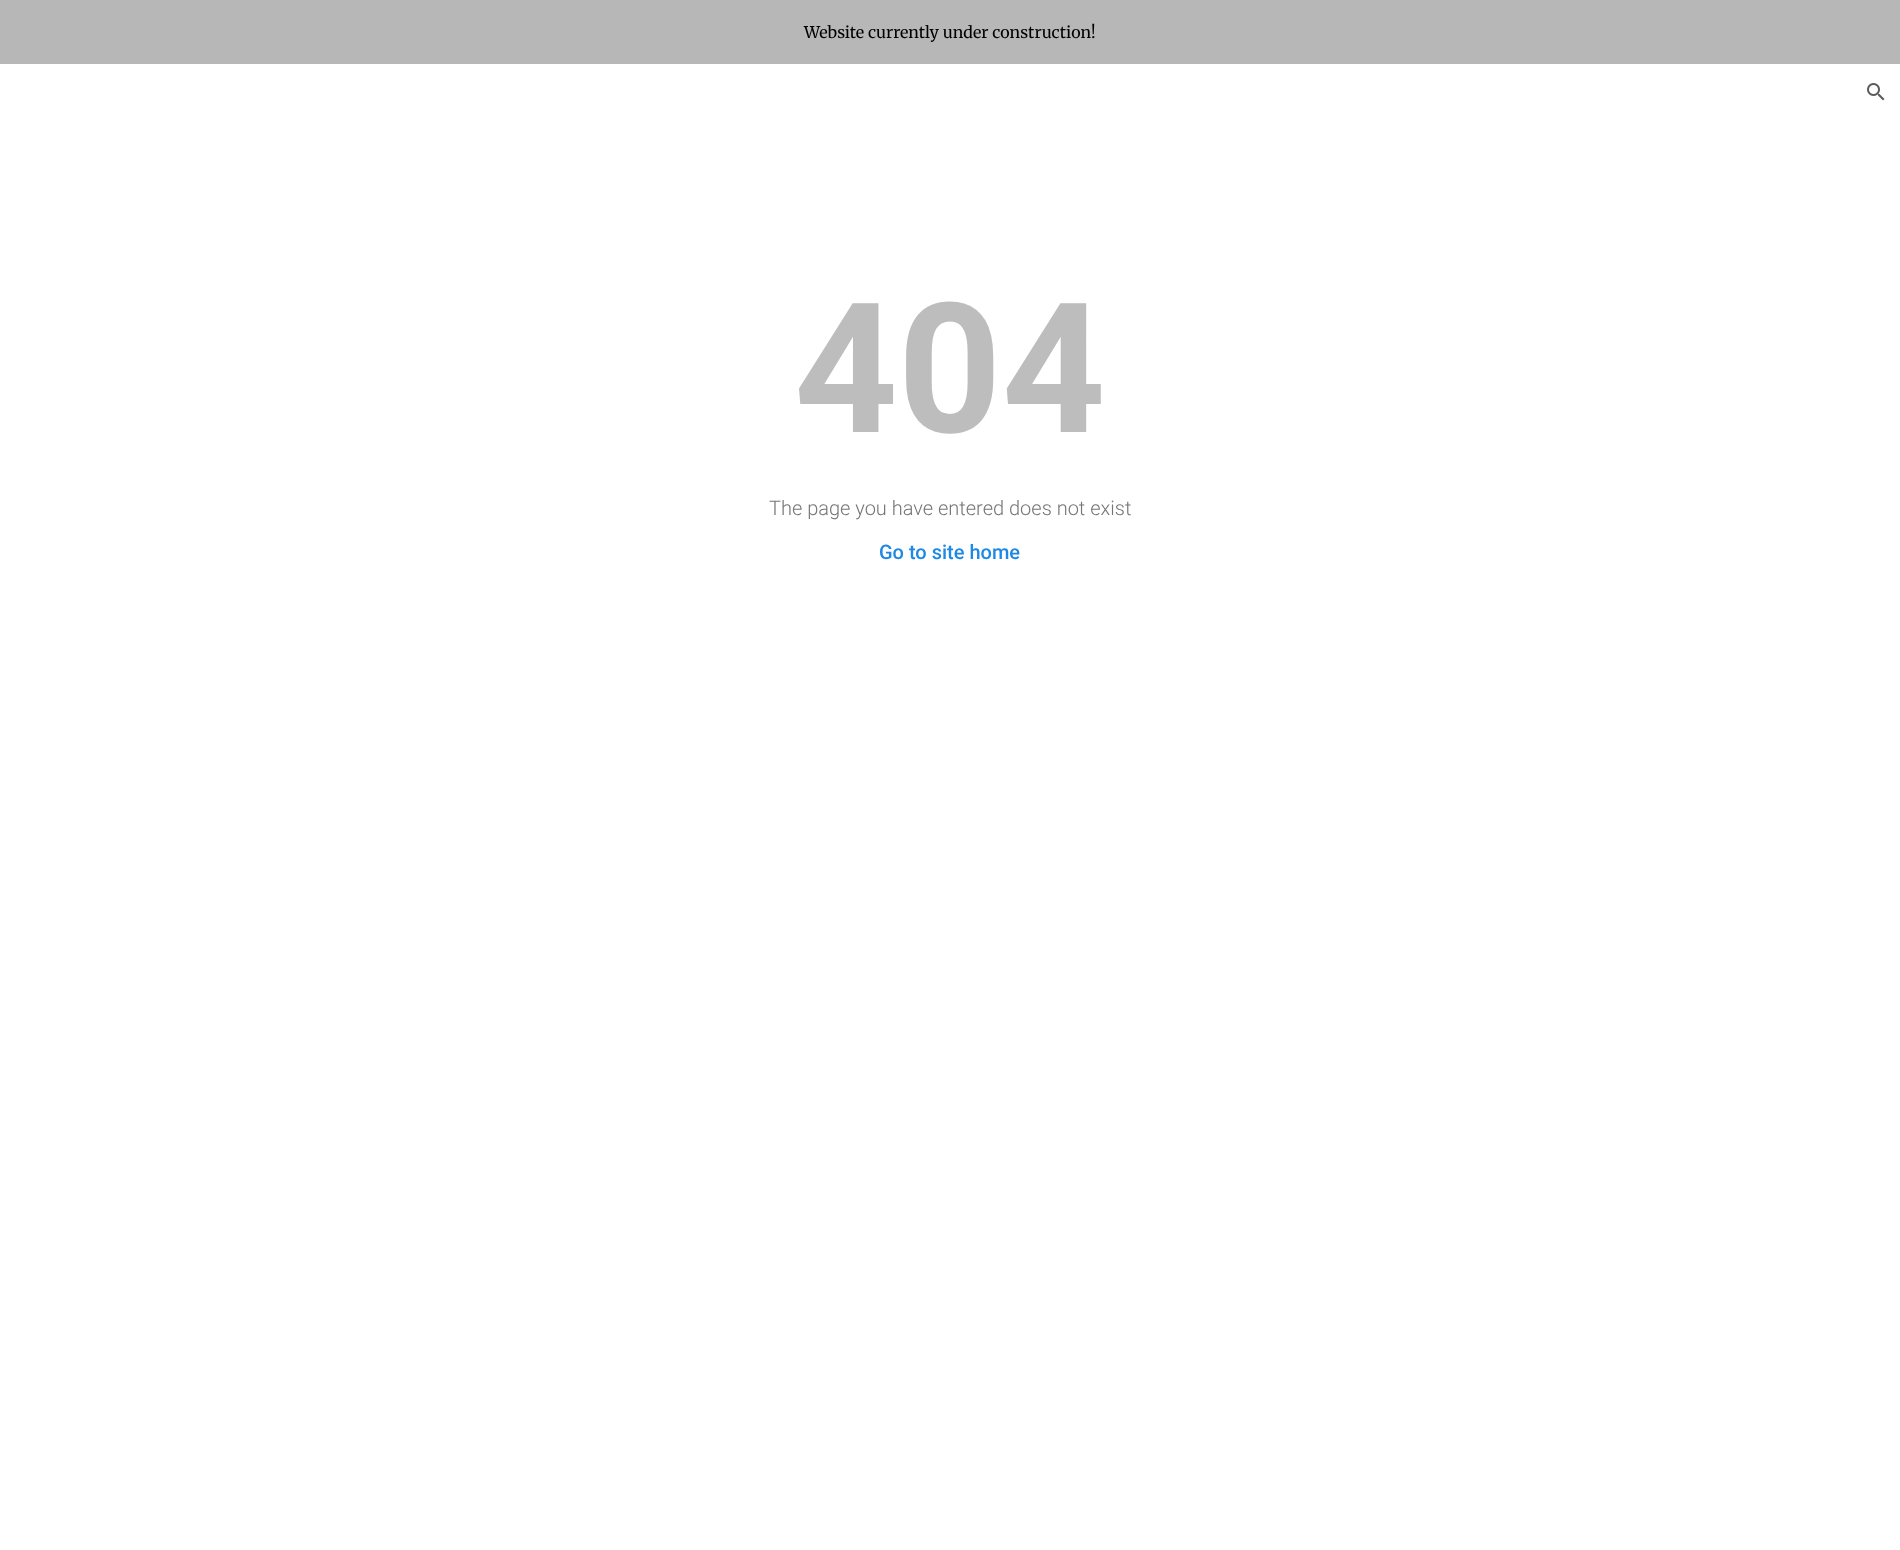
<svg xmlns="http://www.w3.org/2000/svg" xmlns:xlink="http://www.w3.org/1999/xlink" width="1900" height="1550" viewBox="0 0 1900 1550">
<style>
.cls-1{font:16px Merriweather;fill:#000000}
.cls-2{font:bold 181px Roboto;fill:#bdbdbd}
.cls-3{font:300 20px Roboto;fill:#757575}
.cls-4{font:500 20px Roboto;fill:#1e88e5}
</style>
<rect width="100%" height="100%" fill="#ffffff"/>
<rect fill="#b7b7b7" x="0" y="0" width="1900" height="64"/>
<image xlink:href="image0.png" x="1867" y="83" width="18" height="18"/>
<text class="cls-1" x="804" y="38">Website currently under construction!</text>
<text class="cls-2" x="794" y="432">404</text>
<text class="cls-3" x="769" y="515">The page you have entered does not exist</text>
<text class="cls-4" x="879" y="559">Go to site home</text>
</svg>
